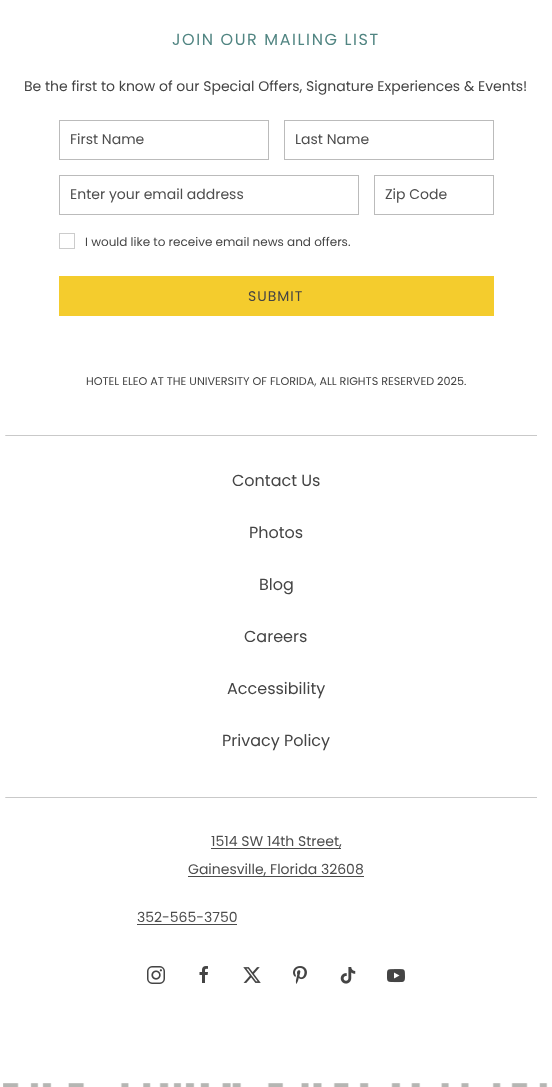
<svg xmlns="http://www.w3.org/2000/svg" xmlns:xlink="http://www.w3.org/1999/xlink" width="552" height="1087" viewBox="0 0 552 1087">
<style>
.cls-1{font:16px Poppins;letter-spacing:1.6px;fill:#518582}
.cls-2{font:14px Poppins;fill:#444444}
.cls-3{font:14px Poppins;fill:#4d4d4d}
.cls-4{font:12px Poppins;fill:#444444}
.cls-5{font:14px Poppins;letter-spacing:1px;fill:#444444}
.cls-6{font:11.2px Poppins;fill:#444444}
.cls-7{font:16px Poppins;fill:#444444}
</style>
<rect width="100%" height="100%" fill="#ffffff"/>
<rect fill="none" stroke="#bbbbbb" x="59.5" y="120.5" width="209" height="39"/>
<rect fill="none" stroke="#bbbbbb" x="284.5" y="120.5" width="209" height="39"/>
<rect fill="none" stroke="#bbbbbb" x="59.5" y="175.5" width="299" height="39"/>
<rect fill="none" stroke="#bbbbbb" x="374.5" y="175.5" width="119" height="39"/>
<rect fill="none" stroke="#cccccc" x="59.5" y="233.5" width="15" height="15"/>
<rect fill="#f4cc2d" x="59" y="276" width="435" height="40"/>
<path fill="#c9c9c9" d="M5 435H537V436H6Z"/>
<path fill="#cccccc" d="M5 436V435L6 436Z"/>
<path fill="#c9c9c9" d="M5 797H537V798H6Z"/>
<path fill="#cccccc" d="M5 798V797L6 798Z"/>
<rect fill="#4b4b4b" x="211" y="848" width="130" height="1"/>
<rect fill="#4b4b4b" x="188" y="876" width="176" height="1"/>
<rect fill="#4b4b4b" x="137" y="924" width="100" height="1"/>
<image xlink:href="image0.png" x="147" y="966" width="18" height="18"/>
<image xlink:href="image1.png" x="199" y="966" width="9" height="17"/>
<image xlink:href="image2.png" x="243" y="967" width="18" height="16"/>
<image xlink:href="image3.png" x="293" y="966" width="14" height="18"/>
<image xlink:href="image4.png" x="340" y="967" width="16" height="17"/>
<image xlink:href="image5.png" x="387" y="969" width="18" height="14"/>
<image xlink:href="image6.png" x="3" y="1083" width="545" height="4"/>
<text class="cls-1" x="172" y="45">JOIN OUR MAILING LIST</text>
<text class="cls-2" x="24" y="91">Be the first to know of our Special Offers, Signature Experiences &amp; Events!</text>
<text class="cls-3" x="70" y="144">First Name</text>
<text class="cls-3" x="295" y="144">Last Name</text>
<text class="cls-3" x="70" y="199">Enter your email address</text>
<text class="cls-3" x="385" y="199">Zip Code</text>
<text class="cls-4" x="85" y="246">I would like to receive email news and offers.</text>
<text class="cls-5" x="248" y="301">SUBMIT</text>
<text class="cls-6" x="86" y="385">HOTEL ELEO AT THE UNIVERSITY OF FLORIDA, ALL RIGHTS RESERVED 2025.</text>
<text class="cls-7" x="232" y="486">Contact Us</text>
<text class="cls-7" x="249" y="538">Photos</text>
<text class="cls-7" x="259" y="590">Blog</text>
<text class="cls-7" x="244" y="642">Careers</text>
<text class="cls-7" x="227" y="694">Accessibility</text>
<text class="cls-7" x="222" y="746">Privacy Policy</text>
<text class="cls-3" x="211" y="846">1514 SW 14th Street,</text>
<text class="cls-3" x="188" y="874">Gainesville, Florida 32608</text>
<text class="cls-3" x="137" y="922">352-565-3750</text>
</svg>
